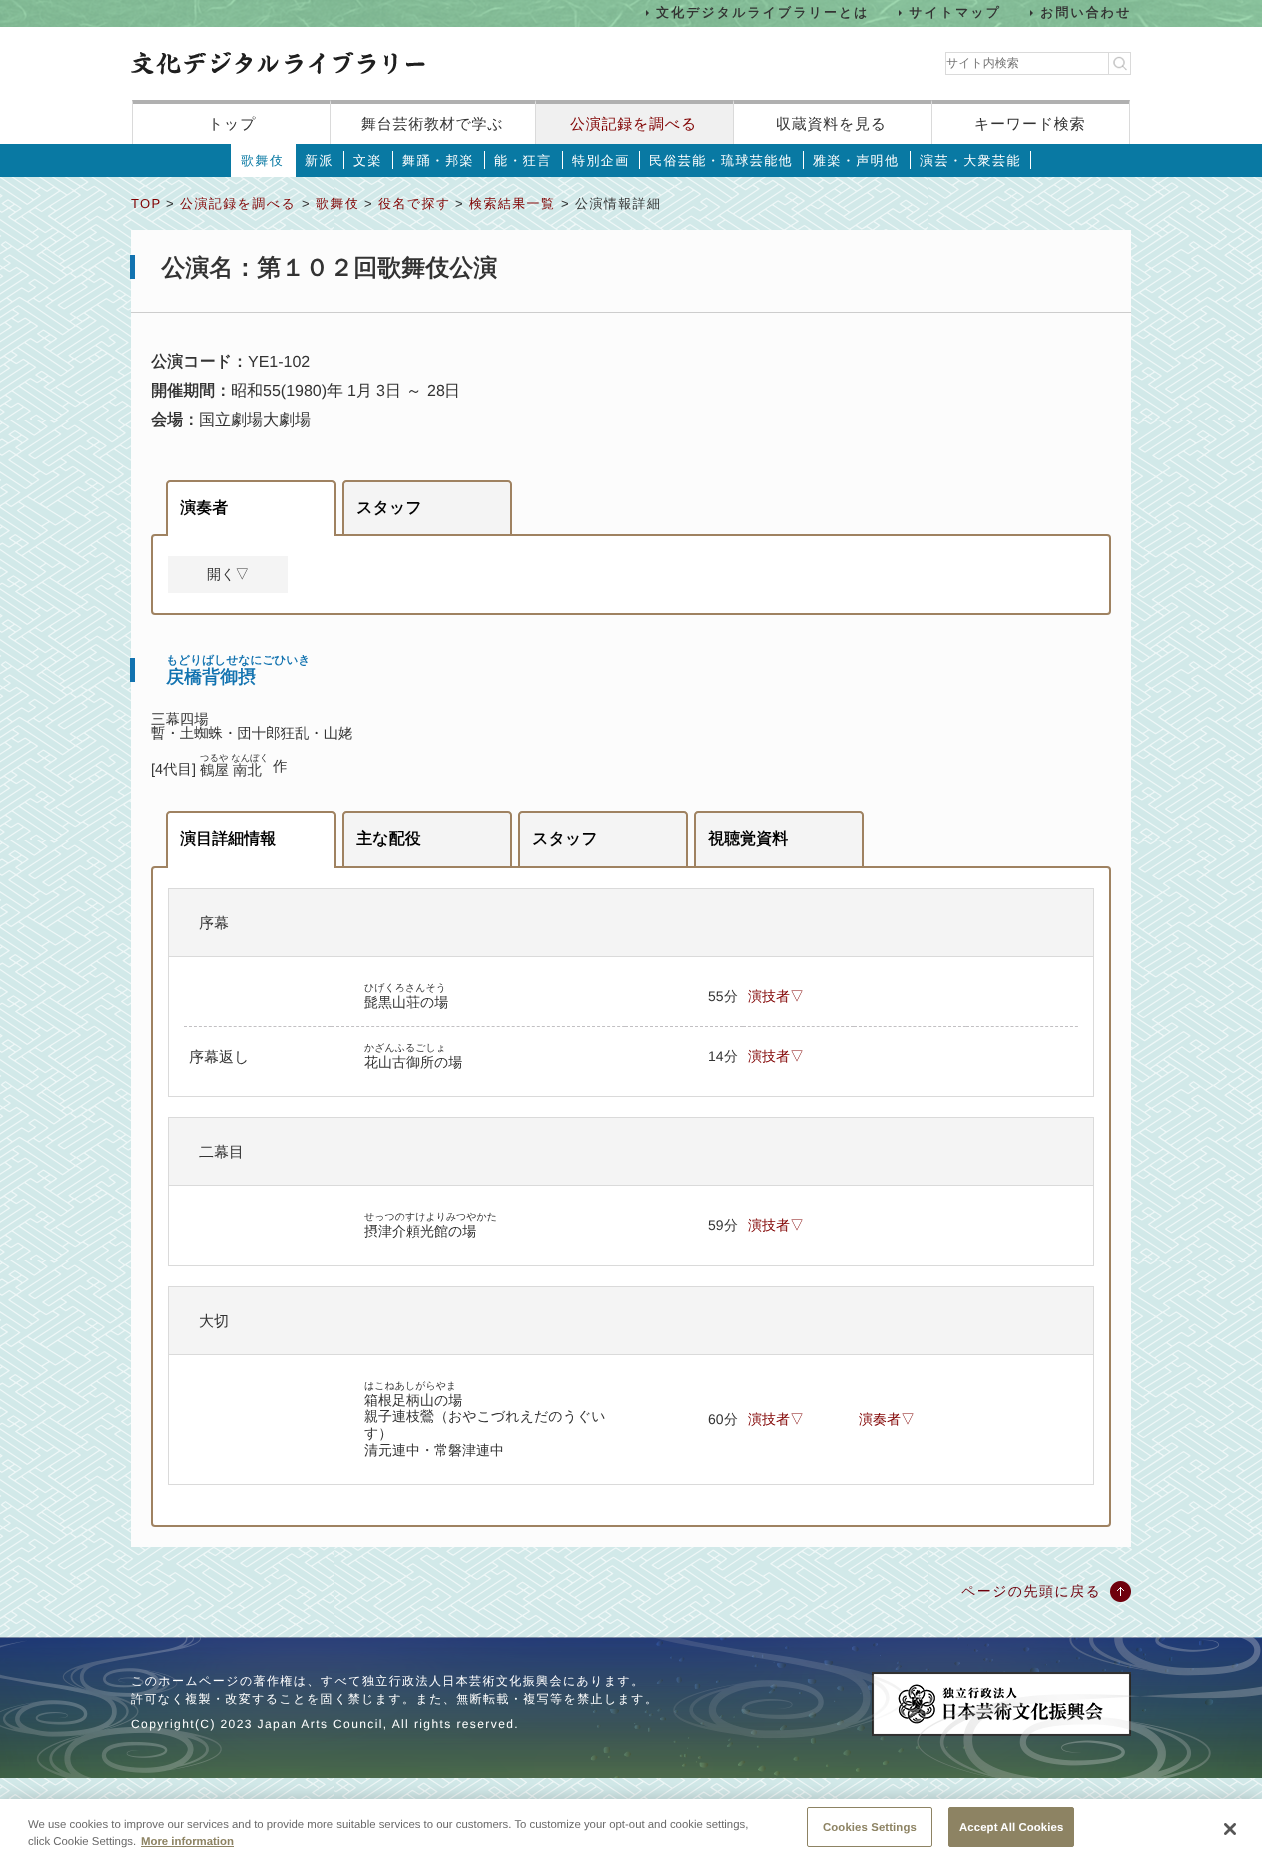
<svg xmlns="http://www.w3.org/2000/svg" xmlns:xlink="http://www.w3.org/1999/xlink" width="1262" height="1859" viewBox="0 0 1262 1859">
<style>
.cls-1{font:bold 13px WenQuanYi Zen Hei;letter-spacing:2px;fill:#333333}
.cls-2{font:500 12px WenQuanYi Zen Hei;fill:#757575}
.cls-3{font:500 15px WenQuanYi Zen Hei;letter-spacing:0.75px;fill:#333333}
.cls-4{font:500 15px WenQuanYi Zen Hei;letter-spacing:0.75px;fill:#800000}
.cls-5{font:500 13px WenQuanYi Zen Hei;letter-spacing:1.4px;fill:#0979a3}
.cls-6{font:500 13px WenQuanYi Zen Hei;letter-spacing:1.4px;fill:#ffffff}
.cls-7{font:13px Liberation Sans;letter-spacing:1.4px;fill:#800000}
.cls-8{font:13px Liberation Sans;letter-spacing:1.4px;fill:#333333}
.cls-9{font:500 13px WenQuanYi Zen Hei;letter-spacing:1.4px;fill:#800000}
.cls-10{font:500 13px WenQuanYi Zen Hei;letter-spacing:1.4px;fill:#333333}
.cls-11{font:bold 24px WenQuanYi Zen Hei;fill:#333333}
.cls-12{font:bold 16px WenQuanYi Zen Hei;fill:#333333}
.cls-13{font:16px Liberation Sans;fill:#333333}
.cls-14{font:500 16px WenQuanYi Zen Hei;fill:#333333}
.cls-15{font:bold 16px WenQuanYi Zen Hei;fill:#000000}
.cls-16{font:500 14px WenQuanYi Zen Hei;fill:#333333}
.cls-17{font:bold 11.75px WenQuanYi Zen Hei;fill:#1273b0}
.cls-18{font:bold 18px WenQuanYi Zen Hei;fill:#1273b0}
.cls-19{font:500 14.4px WenQuanYi Zen Hei;fill:#333333}
.cls-20{font:14.4px Liberation Sans;fill:#333333}
.cls-21{font:500 9.25px WenQuanYi Zen Hei;fill:#333333}
.cls-22{font:500 15px WenQuanYi Zen Hei;fill:#333333}
.cls-23{font:500 10px WenQuanYi Zen Hei;fill:#333333}
.cls-24{font:14px Liberation Sans;fill:#333333}
.cls-25{font:500 14px WenQuanYi Zen Hei;fill:#800000}
.cls-26{font:500 14px WenQuanYi Zen Hei;letter-spacing:1.4px;fill:#6f000c}
.cls-27{font:500 12px WenQuanYi Zen Hei;letter-spacing:1.4px;fill:#ffffff}
.cls-28{font:12px Liberation Sans;letter-spacing:1.4px;fill:#ffffff}
.cls-29{font:11.38px Liberation Sans;fill:#696969}
.cls-30{font:bold 11.38px Liberation Sans;fill:#8d8363}
.cls-31{font:bold 11.38px Liberation Sans;letter-spacing:0.1px;fill:#8d8363}
.cls-32{font:bold 11.38px Liberation Sans;letter-spacing:0.1px;fill:#ffffff}
</style>
<rect width="100%" height="100%" fill="#ffffff"/>
<image xlink:href="image0.png" x="0" y="177" width="1262" height="1622"/>
<image xlink:href="image1.png" x="0" y="0" width="1262" height="27"/>
<path fill="#333333" d="M646 16V10L649 13Z"/>
<path fill="#333333" d="M899 16V10L902 13Z"/>
<path fill="#333333" d="M1030 16V10L1033 13Z"/>
<image xlink:href="image2.png" x="131" y="52" width="294" height="23"/>
<rect fill="none" stroke="#dadada" x="945.5" y="52.5" width="185" height="22"/>
<image xlink:href="image3.png" x="1113" y="56" width="14" height="15"/>
<rect fill="#dadada" x="1108" y="53" width="1" height="21"/>
<path fill="#b0b0b0" d="M132 100H330V104H133Z"/>
<path fill="#dadada" d="M132 144V100L133 104V144Z"/>
<path fill="#b0b0b0" d="M330 100H535V104H331Z"/>
<path fill="#dadada" d="M330 144V100L331 104V144Z"/>
<path fill="#b0b0b0" d="M535 100H733V104H536Z"/>
<path fill="#dadada" d="M535 144V100L536 104V144Z"/>
<rect fill="#f0f0f0" x="536" y="104" width="197" height="40"/>
<path fill="#b0b0b0" d="M733 100H931V104H734Z"/>
<path fill="#dadada" d="M733 144V100L734 104V144Z"/>
<path fill="#b0b0b0" d="M931 100H1130L1129 104H932Z"/>
<path fill="#dadada" d="M1130 100V144H1129V104Z"/>
<path fill="#dadada" d="M931 144V100L932 104V144Z"/>
<rect fill="#0979a3" x="0" y="144" width="1262" height="33"/>
<rect fill="#ffffff" x="231" y="144" width="65" height="33"/>
<rect fill="#ffffff" x="343" y="151" width="1" height="18"/>
<rect fill="#ffffff" x="392" y="151" width="1" height="18"/>
<rect fill="#ffffff" x="484" y="151" width="1" height="18"/>
<rect fill="#ffffff" x="562" y="151" width="1" height="18"/>
<rect fill="#ffffff" x="639" y="151" width="1" height="18"/>
<rect fill="#ffffff" x="803" y="151" width="1" height="18"/>
<rect fill="#ffffff" x="910" y="151" width="1" height="18"/>
<rect fill="#ffffff" x="1030" y="151" width="1" height="18"/>
<rect fill="#fcfcfc" x="131" y="230" width="1000" height="1317"/>
<rect fill="#cdcdcd" x="131" y="312" width="1000" height="1"/>
<rect fill="#1273b0" x="130" y="255" width="5" height="24"/>
<path fill="#ffffff" d="M170 480H332C334 480 336 482 336 484V534H166V484C166 482 168 480 170 480Z"/>
<path fill="#9f8261" fill-rule="evenodd" d="M170 480H332C334 480 336 482 336 484V534H166V484C166 482 168 480 170 480ZM170 482H332C333 482 334 483 334 484V534H168V484C168 483 169 482 170 482Z"/>
<rect fill="#ffffff" stroke="#9f8261" stroke-width="2" x="152" y="535" width="958" height="79" rx="3"/>
<rect fill="#ffffff" x="168" y="534" width="166" height="2"/>
<path fill="#f4f4f4" d="M346 480H508C510 480 512 482 512 484V534H342V484C342 482 344 480 346 480Z"/>
<path fill="#9f8261" fill-rule="evenodd" d="M346 480H508C510 480 512 482 512 484V534H342V484C342 482 344 480 346 480ZM346 482H508C509 482 510 483 510 484V534H344V484C344 483 345 482 346 482Z"/>
<rect fill="#f4f4f4" x="168" y="556" width="120" height="37"/>
<rect fill="#1273b0" x="130" y="658" width="5" height="24"/>
<path fill="#ffffff" d="M170 811H332C334 811 336 813 336 815V866H166V815C166 813 168 811 170 811Z"/>
<path fill="#9f8261" fill-rule="evenodd" d="M170 811H332C334 811 336 813 336 815V866H166V815C166 813 168 811 170 811ZM170 813H332C333 813 334 814 334 815V866H168V815C168 814 169 813 170 813Z"/>
<rect fill="#ffffff" stroke="#9f8261" stroke-width="2" x="152" y="867" width="958" height="659" rx="3"/>
<rect fill="#ffffff" x="168" y="866" width="166" height="2"/>
<path fill="#f4f4f4" d="M346 811H508C510 811 512 813 512 815V866H342V815C342 813 344 811 346 811Z"/>
<path fill="#9f8261" fill-rule="evenodd" d="M346 811H508C510 811 512 813 512 815V866H342V815C342 813 344 811 346 811ZM346 813H508C509 813 510 814 510 815V866H344V815C344 814 345 813 346 813Z"/>
<path fill="#f4f4f4" d="M522 811H684C686 811 688 813 688 815V866H518V815C518 813 520 811 522 811Z"/>
<path fill="#9f8261" fill-rule="evenodd" d="M522 811H684C686 811 688 813 688 815V866H518V815C518 813 520 811 522 811ZM522 813H684C685 813 686 814 686 815V866H520V815C520 814 521 813 522 813Z"/>
<path fill="#f4f4f4" d="M698 811H860C862 811 864 813 864 815V866H694V815C694 813 696 811 698 811Z"/>
<path fill="#9f8261" fill-rule="evenodd" d="M698 811H860C862 811 864 813 864 815V866H694V815C694 813 696 811 698 811ZM698 813H860C861 813 862 814 862 815V866H696V815C696 814 697 813 698 813Z"/>
<rect fill="#f4f4f4" stroke="#dadada" x="168.5" y="888.5" width="925" height="68"/>
<rect fill="#dadada" x="1093" y="957" width="1" height="140"/>
<rect fill="#dadada" x="168" y="1096" width="926" height="1"/>
<rect fill="#dadada" x="168" y="957" width="1" height="140"/>
<path fill="none" stroke="#c2c0c3" stroke-dasharray="3 2.02" d="M331 1026.5H625"/>
<path fill="none" stroke="#c2c0c3" stroke-dasharray="3 2" d="M625 1026.5H743"/>
<path fill="none" stroke="#c2c0c3" stroke-dasharray="3 1.91" d="M743 1026.5H854"/>
<path fill="none" stroke="#c2c0c3" stroke-dasharray="3 1.97" d="M184 1026.5H331"/>
<path fill="none" stroke="#c2c0c3" stroke-dasharray="3 1.95" d="M854 1026.5H966"/>
<path fill="none" stroke="#c2c0c3" stroke-dasharray="3 1.95" d="M966 1026.5H1078"/>
<rect fill="#f4f4f4" stroke="#dadada" x="168.5" y="1117.5" width="925" height="68"/>
<rect fill="#dadada" x="1093" y="1186" width="1" height="80"/>
<rect fill="#dadada" x="168" y="1265" width="926" height="1"/>
<rect fill="#dadada" x="168" y="1186" width="1" height="80"/>
<rect fill="#f4f4f4" stroke="#dadada" x="168.5" y="1286.5" width="925" height="68"/>
<rect fill="#dadada" x="1093" y="1355" width="1" height="130"/>
<rect fill="#dadada" x="168" y="1484" width="926" height="1"/>
<rect fill="#dadada" x="168" y="1355" width="1" height="130"/>
<image xlink:href="image4.png" x="1110" y="1581" width="21" height="21"/>
<image xlink:href="image5.png" x="0" y="1637" width="1262" height="141"/>
<image xlink:href="image6.png" x="0" y="1637" width="222" height="141"/>
<image xlink:href="image7.png" x="872" y="1672" width="259" height="64"/>
<image xlink:href="image8.png" x="653" y="1637" width="609" height="141"/>
<rect fill="#000000" fill-opacity="0.2" filter="blur(9px)" x="0" y="1799" width="1262" height="60"/>
<rect fill="#ffffff" x="0" y="1799" width="1262" height="60"/>
<rect fill="#8d8363" x="141" y="1846" width="93" height="1"/>
<rect fill="none" stroke="#8d8363" x="807.5" y="1807.5" width="124" height="39" rx="1.5"/>
<rect fill="#8d8363" stroke="#8d8363" x="948.5" y="1807.5" width="125" height="39" rx="1.5"/>
<image xlink:href="image9.png" x="1224" y="1823" width="12" height="12"/>
<text class="cls-1" x="656" y="17">文化デジタルライブラリーとは</text>
<text class="cls-1" x="909" y="17">サイトマップ</text>
<text class="cls-1" x="1040" y="17">お問い合わせ</text>
<text class="cls-2" x="946" y="67">サイト内検索</text>
<text class="cls-3" x="208" y="129">トップ</text>
<text class="cls-3" x="361" y="129">舞台芸術教材で学ぶ</text>
<text class="cls-4" x="570" y="129">公演記録を調べる</text>
<text class="cls-3" x="776" y="129">収蔵資料を見る</text>
<text class="cls-3" x="974" y="129">キーワード検索</text>
<text class="cls-5" x="241" y="165">歌舞伎</text>
<text class="cls-6" x="305" y="165">新派</text>
<text class="cls-6" x="353" y="165">文楽</text>
<text class="cls-6" x="402" y="165">舞踊・邦楽</text>
<text class="cls-6" x="494" y="165">能・狂言</text>
<text class="cls-6" x="572" y="165">特別企画</text>
<text class="cls-6" x="649" y="165">民俗芸能・琉球芸能他</text>
<text class="cls-6" x="813" y="165">雅楽・声明他</text>
<text class="cls-6" x="920" y="165">演芸・大衆芸能</text>
<text class="cls-7" x="131" y="208">TOP</text>
<text class="cls-8" x="166" y="208">&gt;</text>
<text class="cls-9" x="180" y="208">公演記録を調べる</text>
<text class="cls-8" x="302" y="208">&gt;</text>
<text class="cls-9" x="316" y="208">歌舞伎</text>
<text class="cls-8" x="364" y="208">&gt;</text>
<text class="cls-9" x="378" y="208">役名で探す</text>
<text class="cls-8" x="455" y="208">&gt;</text>
<text class="cls-9" x="469" y="208">検索結果一覧</text>
<text class="cls-8" x="561" y="208">&gt;</text>
<text class="cls-10" x="575" y="208">公演情報詳細</text>
<text class="cls-11" x="161" y="276">公演名：第１０２回歌舞伎公演</text>
<text class="cls-12" x="151" y="367">公演コード：</text>
<text class="cls-13" x="248" y="367">YE1-102</text>
<text class="cls-12" x="151" y="396">開催期間：</text>
<text class="cls-14" x="231" y="396">昭和</text>
<text class="cls-13" x="263" y="396">55(1980)</text>
<text class="cls-14" x="327" y="396">年</text>
<text class="cls-13" x="347" y="396">1</text>
<text class="cls-14" x="356" y="396">月</text>
<text class="cls-13" x="376" y="396">3</text>
<text class="cls-14" x="385" y="396">日 ～</text>
<text class="cls-13" x="427" y="396">28</text>
<text class="cls-14" x="444" y="396">日</text>
<text class="cls-12" x="151" y="425">会場：</text>
<text class="cls-14" x="199" y="425">国立劇場大劇場</text>
<text class="cls-15" x="180" y="513">演奏者</text>
<text class="cls-15" x="356" y="513">スタッフ</text>
<text class="cls-16" x="207" y="579">開く▽</text>
<text class="cls-17" x="166" y="664">もどりばしせなにごひいき</text>
<text class="cls-18" x="166" y="683">戻橋背御摂</text>
<text class="cls-19"><tspan x="151" y="724">三幕四場</tspan><tspan x="151" y="738">暫・土蜘蛛・団十郎狂乱・山姥</tspan></text>
<text class="cls-20" x="151" y="774">[4</text>
<text class="cls-19" x="163" y="774">代目</text>
<text class="cls-20" x="192" y="774">]</text>
<text class="cls-21" x="200" y="761">つるや なんぼく</text>
<text class="cls-19" x="200" y="775">鶴屋 南北</text>
<text class="cls-19" x="273" y="771">作</text>
<text class="cls-15" x="180" y="844">演目詳細情報</text>
<text class="cls-15" x="356" y="844">主な配役</text>
<text class="cls-15" x="532" y="844">スタッフ</text>
<text class="cls-15" x="708" y="844">視聴覚資料</text>
<text class="cls-22" x="199" y="928">序幕</text>
<text class="cls-23" x="364" y="991">ひげくろさんそう</text>
<text class="cls-16" x="364" y="1007">髭黒山荘の場</text>
<text class="cls-24" x="708" y="1001">55</text>
<text class="cls-16" x="724" y="1001">分</text>
<text class="cls-25" x="748" y="1001">演技者▽</text>
<text class="cls-22" x="189" y="1062">序幕返し</text>
<text class="cls-23" x="364" y="1051">かざんふるごしょ</text>
<text class="cls-16" x="364" y="1067">花山古御所の場</text>
<text class="cls-24" x="708" y="1061">14</text>
<text class="cls-16" x="724" y="1061">分</text>
<text class="cls-25" x="748" y="1061">演技者▽</text>
<text class="cls-22" x="199" y="1157">二幕目</text>
<text class="cls-23" x="364" y="1220">せっつのすけよりみつやかた</text>
<text class="cls-16" x="364" y="1236">摂津介頼光館の場</text>
<text class="cls-24" x="708" y="1230">59</text>
<text class="cls-16" x="724" y="1230">分</text>
<text class="cls-25" x="748" y="1230">演技者▽</text>
<text class="cls-22" x="199" y="1326">大切</text>
<text class="cls-23" x="364" y="1389">はこねあしがらやま</text>
<text class="cls-16"><tspan x="364" y="1405">箱根足柄山の場</tspan><tspan x="364" y="1421">親子連枝鶯（おやこづれえだのうぐい</tspan><tspan x="364" y="1438">す）</tspan><tspan x="364" y="1455">清元連中・常磐津連中</tspan></text>
<text class="cls-24" x="708" y="1424">60</text>
<text class="cls-16" x="724" y="1424">分</text>
<text class="cls-25" x="748" y="1424">演技者▽</text>
<text class="cls-25" x="859" y="1424">演奏者▽</text>
<text class="cls-26" x="961" y="1596">ページの先頭に戻る</text>
<text class="cls-27"><tspan x="131" y="1685">このホームページの著作権は、すべて独立行政法人日本芸術文化振興会にあります。</tspan><tspan x="131" y="1703">許可なく複製・改変することを固く禁じます。また、無断転載・複写等を禁止します。</tspan></text>
<text class="cls-28" x="131" y="1728">Copyright(C) 2023 Japan Arts Council, All rights reserved.</text>
<text class="cls-29"><tspan x="28" y="1828">We use cookies to improve our services and to provide more suitable services to our customers. To customize your opt-out and cookie settings,</tspan><tspan x="28" y="1845">click Cookie Settings.</tspan></text>
<text class="cls-30" x="141" y="1845">More information</text>
<text class="cls-31" x="823" y="1831">Cookies Settings</text>
<text class="cls-32" x="959" y="1831">Accept All Cookies</text>
</svg>
